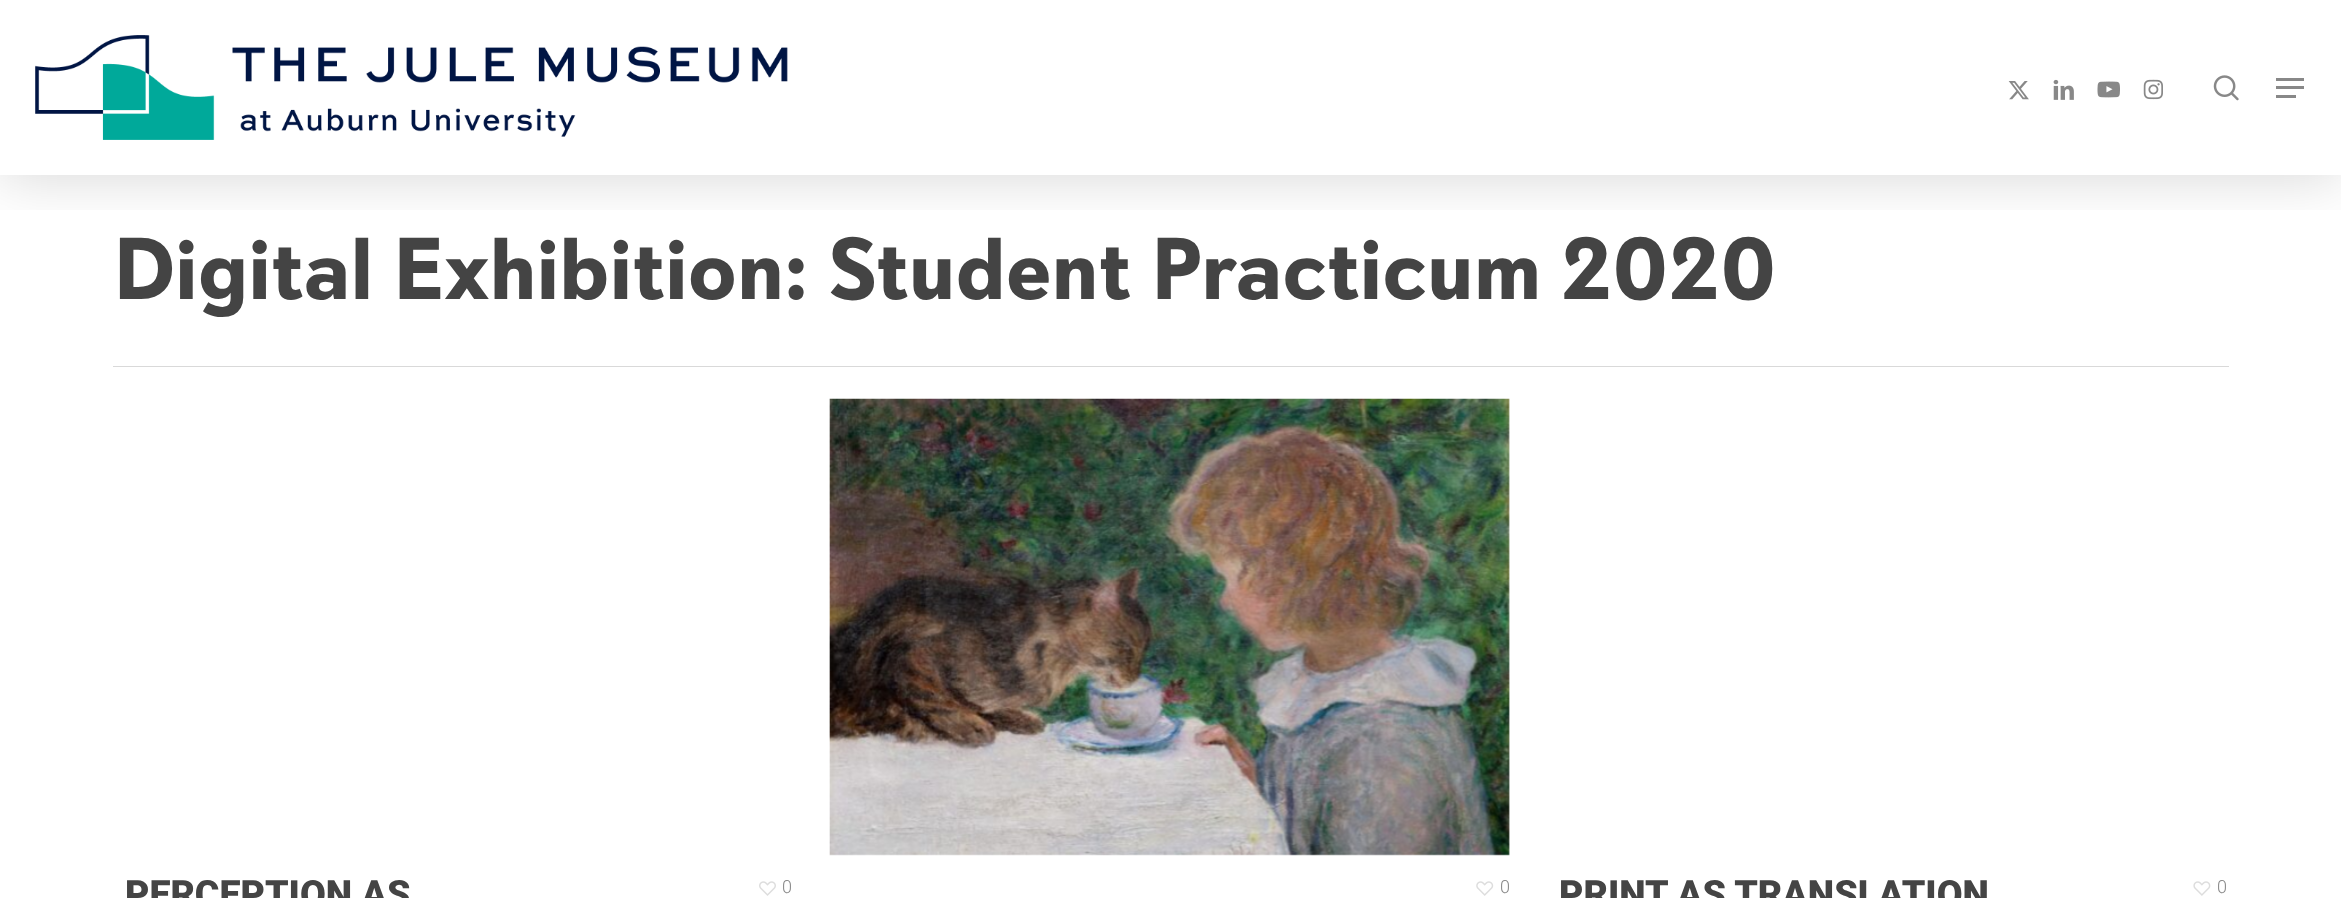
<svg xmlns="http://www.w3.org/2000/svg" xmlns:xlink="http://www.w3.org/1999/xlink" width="2341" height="898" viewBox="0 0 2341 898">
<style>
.cls-1{font:bold 87.5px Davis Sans;fill:#444444}
.cls-2{font:900 37.5px Roboto;fill:#444444}
.cls-3{font:300 18px Roboto;fill:#888888}
</style>
<defs>
<clipPath id="clip1"><rect x="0" y="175" width="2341" height="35"/></clipPath>
</defs>
<rect width="100%" height="100%" fill="#ffffff"/>
<g clip-path="url(#clip1)">
<rect fill="#000000" fill-opacity="0.15" filter="blur(28px)" x="0" y="4" width="2341" height="175"/>
</g>
<image xlink:href="image0.png" x="35" y="35" width="753" height="105"/>
<image xlink:href="image1.png" x="2008" y="81" width="21" height="19"/>
<image xlink:href="image2.png" x="2053" y="79" width="21" height="21"/>
<image xlink:href="image3.png" x="2097" y="81" width="23" height="17"/>
<image xlink:href="image4.png" x="2143" y="79" width="20" height="21"/>
<image xlink:href="image5.png" x="2213" y="75" width="26" height="26"/>
<rect fill="#888888" x="2276" y="78" width="28" height="3"/>
<rect fill="#888888" x="2276" y="95" width="20" height="3"/>
<rect fill="#888888" x="2276" y="86" width="28" height="3"/>
<rect fill="#d9d9d9" x="113" y="366" width="2116" height="1"/>
<image xlink:href="image6.png" x="759" y="881" width="17" height="15"/>
<image xlink:href="image7.png" x="829" y="398" width="681" height="458"/>
<image xlink:href="image8.png" x="1476" y="881" width="18" height="15"/>
<image xlink:href="image9.png" x="2193" y="881" width="18" height="15"/>
<text class="cls-1" x="113" y="299">Digital Exhibition: Student Practicum 2020</text>
<text class="cls-2" x="125" y="907">PERCEPTION AS</text>
<text class="cls-3" x="782" y="893">0</text>
<text class="cls-3" x="1500" y="893">0</text>
<text class="cls-2" x="1559" y="907">PRINT AS TRANSLATION</text>
<text class="cls-3" x="2217" y="893">0</text>
</svg>
